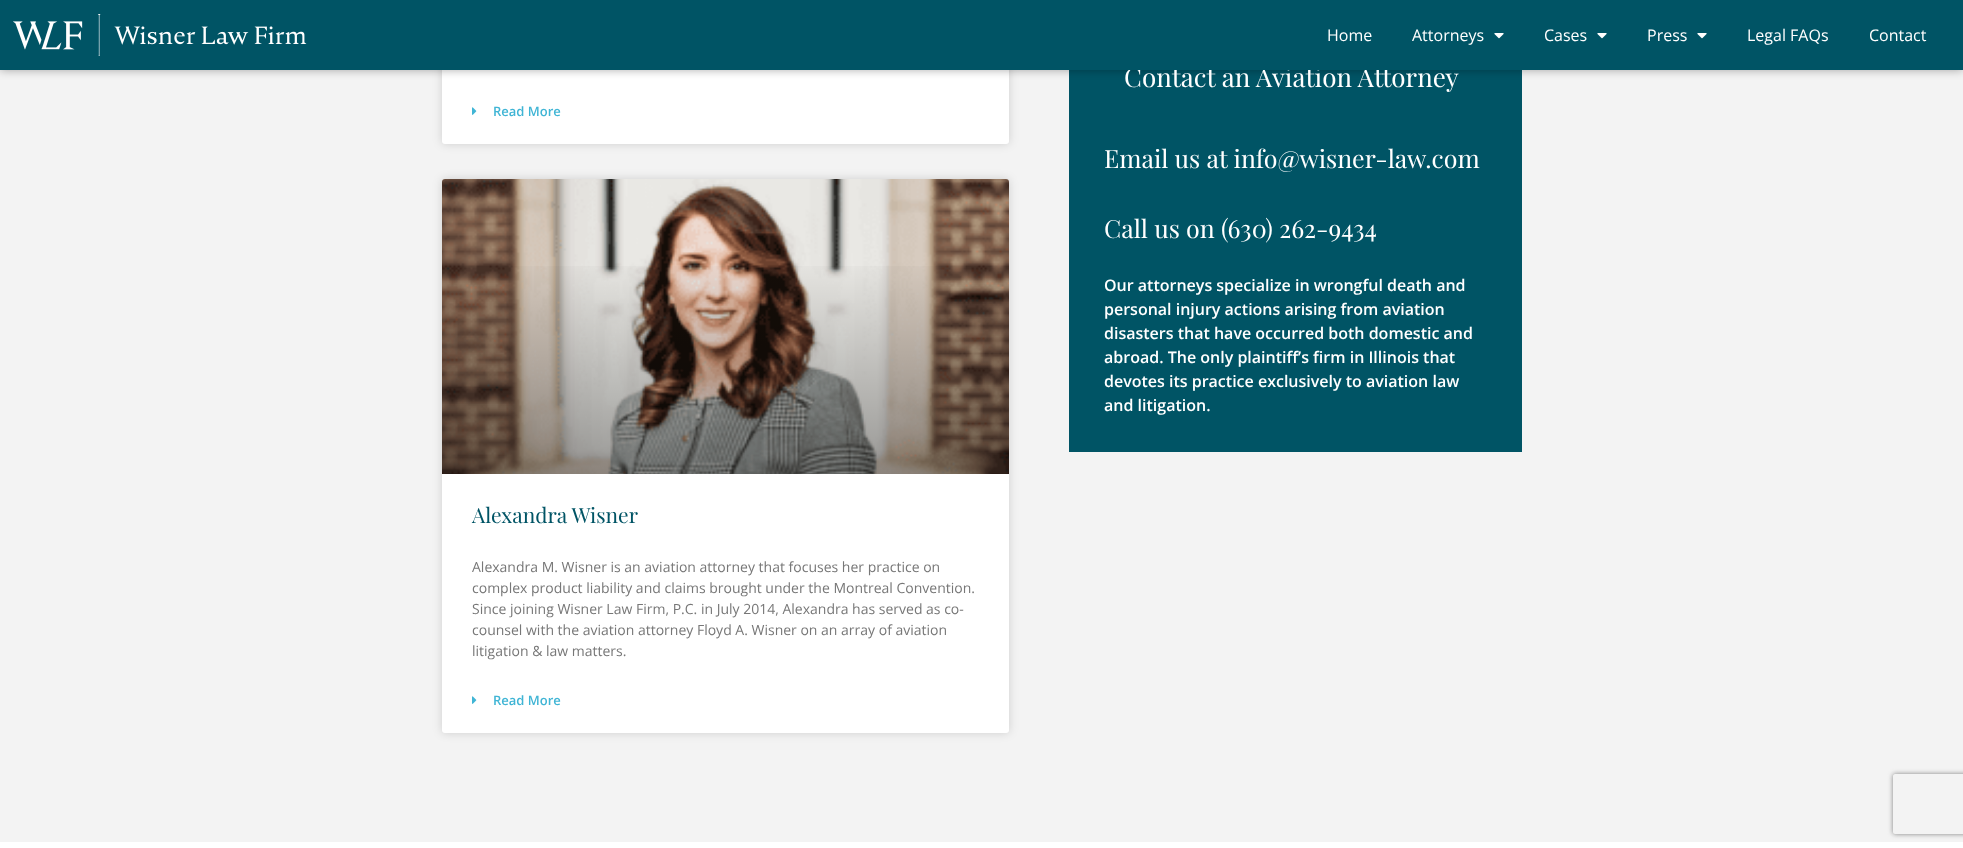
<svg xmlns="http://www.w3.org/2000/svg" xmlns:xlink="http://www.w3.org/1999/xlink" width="1963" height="848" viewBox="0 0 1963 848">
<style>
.cls-1{font:600 13px Open Sans;fill:#40b5d5}
.cls-2{font:21px Playfair Display;fill:#005465}
.cls-3{font:14px Open Sans;fill:#777777}
.cls-4{font:26px Playfair Display;fill:#ffffff}
.cls-5{font:16px Open Sans;fill:#ffffff}
.cls-6{font:25px Playfair Display;fill:#ffffff}
.cls-7{font:600 16px Open Sans;fill:#ffffff}
</style>
<defs>
<linearGradient id="g1" gradientUnits="userSpaceOnUse" x1="726" y1="474" x2="726" y2="179"><stop offset="0" stop-color="#000000" stop-opacity="0.35"/><stop offset="0.75" stop-color="#000000" stop-opacity="0"/></linearGradient>
<clipPath id="clip1"><path d="M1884 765H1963V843H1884ZM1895 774H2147C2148 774 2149 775 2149 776V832C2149 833 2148 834 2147 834H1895C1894 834 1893 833 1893 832V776C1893 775 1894 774 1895 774Z" clip-rule="evenodd"/></clipPath>
</defs>
<rect width="100%" height="100%" fill="#ffffff"/>
<rect fill="#f3f3f3" x="0" y="70" width="1963" height="772"/>
<rect fill="#000000" fill-opacity="0.15" filter="blur(5px)" x="442" y="-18" width="567" height="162" rx="3"/>
<rect fill="#ffffff" x="442" y="-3" width="567" height="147" rx="3"/>
<rect fill="#005465" x="1069" y="70" width="453" height="382"/>
<rect fill="#000000" fill-opacity="0.33" filter="blur(5px)" x="0" y="0" width="1963" height="70"/>
<image xlink:href="image2.png" x="472" y="107" width="5" height="8"/>
<rect fill="#000000" fill-opacity="0.15" filter="blur(5px)" x="442" y="179" width="567" height="554" rx="3"/>
<rect fill="#ffffff" x="442" y="179" width="567" height="554" rx="3"/>
<image xlink:href="image3.png" x="442" y="179" width="567" height="295"/>
<rect fill="url(#g1)" x="442" y="266" width="567" height="208"/>
<image xlink:href="image2.png" x="472" y="696" width="5" height="8"/>
<g clip-path="url(#clip1)">
<rect fill="#808080" filter="blur(2.5px)" x="1893" y="774" width="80" height="60" rx="2"/>
</g>
<text class="cls-1" x="493" y="116">Read More</text>
<text class="cls-2" x="472" y="523">Alexandra Wisner</text>
<text class="cls-3"><tspan x="472" y="572">Alexandra M. Wisner is an aviation attorney that focuses her practice on</tspan><tspan x="472" y="593">complex product liability and claims brought under the Montreal Convention.</tspan><tspan x="472" y="614">Since joining Wisner Law Firm, P.C. in July 2014, Alexandra has served as co-</tspan><tspan x="472" y="635">counsel with the aviation attorney Floyd A. Wisner on an array of aviation</tspan><tspan x="472" y="656">litigation &amp; law matters.</tspan></text>
<text class="cls-1" x="493" y="705">Read More</text>
<text class="cls-4" x="1124" y="87">Contact an Aviation Attorney</text>
<rect fill="#005465" x="0" y="0" width="1963" height="70"/>
<text class="cls-5" x="1869" y="41">Contact</text>
<text class="cls-5" x="1747" y="41">Legal FAQs</text>
<image xlink:href="image1.png" x="1697" y="33" width="10" height="6"/>
<text class="cls-5" x="1647" y="41">Press</text>
<image xlink:href="image1.png" x="1597" y="33" width="10" height="6"/>
<text class="cls-5" x="1544" y="41">Cases</text>
<image xlink:href="image1.png" x="1494" y="33" width="10" height="6"/>
<text class="cls-5" x="1412" y="41">Attorneys</text>
<text class="cls-5" x="1327" y="41">Home</text>
<image xlink:href="image0.png" x="13" y="14" width="294" height="42"/>
<text class="cls-6" x="1104" y="168">Email us at info@wisner-law.com</text>
<text class="cls-6" x="1104" y="238">Call us on (630) 262-9434</text>
<text class="cls-7"><tspan x="1104" y="291">Our attorneys specialize in wrongful death and</tspan><tspan x="1104" y="315">personal injury actions arising from aviation</tspan><tspan x="1104" y="339">disasters that have occurred both domestic and</tspan><tspan x="1104" y="363">abroad. The only plaintiff’s firm in Illinois that</tspan><tspan x="1104" y="387">devotes its practice exclusively to aviation law</tspan><tspan x="1104" y="411">and litigation.</tspan></text>
</svg>
